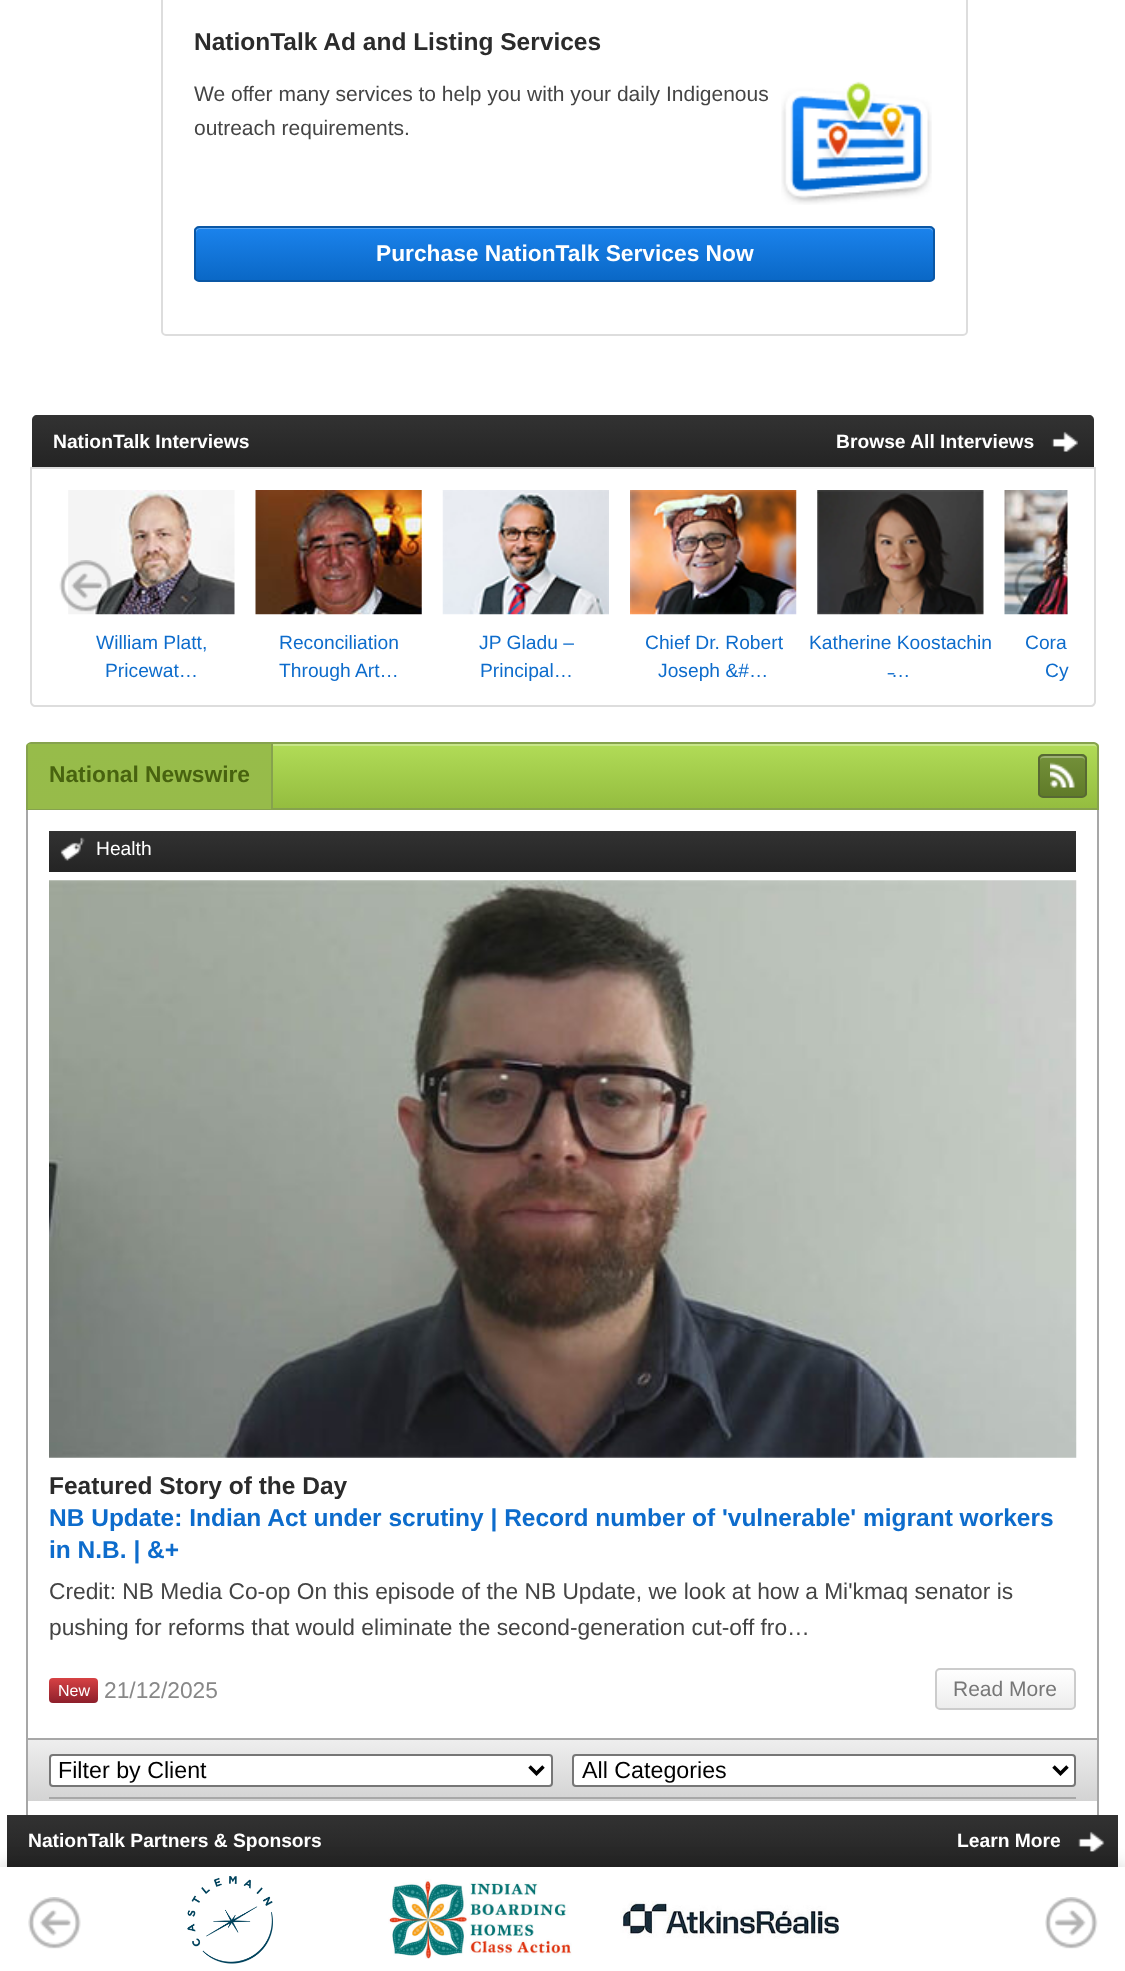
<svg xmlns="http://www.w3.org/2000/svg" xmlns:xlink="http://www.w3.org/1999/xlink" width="1125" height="1971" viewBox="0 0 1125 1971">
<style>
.cls-1{font:bold 24.5px Liberation Sans;fill:#2b2b2b}
.cls-2{font:21px Liberation Sans;fill:#444444}
.cls-3{font:bold 22.75px Liberation Sans;fill:#ffffff}
.cls-4{font:bold 19.25px Liberation Sans;fill:#ffffff}
.cls-5{font:19.25px Liberation Sans;fill:#0d6ccc}
.cls-6{font:bold 22.75px Liberation Sans;fill:#48630f}
.cls-7{font:19.25px Liberation Sans;fill:#ffffff}
.cls-8{font:bold 24.5px Liberation Sans;fill:#0d6ccc}
.cls-9{font:22.75px Liberation Sans;fill:#444444}
.cls-10{font:16px Liberation Sans;fill:#ffffff}
.cls-11{font:22.75px Liberation Sans;fill:#888888}
.cls-12{font:21px Liberation Sans;fill:#777777}
.cls-13{font:23.25px Liberation Sans;fill:#000000}
</style>
<defs>
<clipPath id="clip1"><rect x="194" y="226" width="741" height="56" rx="5"/></clipPath>
<linearGradient id="g1" gradientUnits="userSpaceOnUse" x1="564" y1="227" x2="564" y2="280"><stop offset="0" stop-color="#1b83ed"/><stop offset="1" stop-color="#0a68c6"/></linearGradient>
<linearGradient id="g2" gradientUnits="userSpaceOnUse" x1="563" y1="415" x2="563" y2="467"><stop offset="0" stop-color="#323232"/><stop offset="1" stop-color="#242424"/></linearGradient>
<clipPath id="clip2"><path d="M31 742H1094C1097 742 1099 744 1099 747V810H26V747C26 744 28 742 31 742Z"/></clipPath>
<linearGradient id="g3" gradientUnits="userSpaceOnUse" x1="563" y1="744" x2="563" y2="809"><stop offset="0" stop-color="#b1dc57"/><stop offset="1" stop-color="#94bc3f"/></linearGradient>
<linearGradient id="g4" gradientUnits="userSpaceOnUse" x1="150" y1="744" x2="150" y2="809"><stop offset="0" stop-color="#97bc4a"/><stop offset="1" stop-color="#97bb4a"/></linearGradient>
<clipPath id="clip3"><rect x="1038" y="754" width="49" height="44" rx="5"/></clipPath>
<linearGradient id="g5" gradientUnits="userSpaceOnUse" x1="1062" y1="756" x2="1062" y2="796"><stop offset="0" stop-color="#739039"/><stop offset="1" stop-color="#607b29"/></linearGradient>
<linearGradient id="g6" gradientUnits="userSpaceOnUse" x1="563" y1="831" x2="563" y2="872"><stop offset="0" stop-color="#323232"/><stop offset="1" stop-color="#242424"/></linearGradient>
<linearGradient id="g7" gradientUnits="userSpaceOnUse" x1="74" y1="1678" x2="74" y2="1703"><stop offset="0" stop-color="#d74244"/><stop offset="1" stop-color="#8d1f2b"/></linearGradient>
<clipPath id="clip4"><rect x="935" y="1668" width="141" height="42" rx="5"/></clipPath>
<linearGradient id="g8" gradientUnits="userSpaceOnUse" x1="1005" y1="1670" x2="1005" y2="1708"><stop offset="0" stop-color="#ffffff"/><stop offset="1" stop-color="#ededed"/></linearGradient>
<linearGradient id="g9" gradientUnits="userSpaceOnUse" x1="563" y1="1740" x2="563" y2="1801"><stop offset="0" stop-color="#eeeeee"/><stop offset="1" stop-color="#d3d3d3"/></linearGradient>
<linearGradient id="g10" gradientUnits="userSpaceOnUse" x1="563" y1="1815" x2="563" y2="1867"><stop offset="0" stop-color="#323232"/><stop offset="1" stop-color="#242424"/></linearGradient>
</defs>
<rect width="100%" height="100%" fill="#ffffff"/>
<rect fill="none" stroke="#dddddd" stroke-width="2" x="162" y="-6" width="805" height="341" rx="4"/>
<image xlink:href="image0.png" x="781" y="81" width="151" height="124"/>
<g clip-path="url(#clip1)">
<rect fill="url(#g1)" x="194" y="228" width="741" height="52"/>
</g>
<path fill="#5fa7f2" d="M200 229H929C931 229 933 231 933 233C933 230 932 228 929 228H200L197 229L196 230V233C196 231 198 229 200 229Z"/>
<rect fill="none" stroke="#0a57a5" stroke-width="2" x="195" y="227" width="739" height="54" rx="4"/>
<path fill="url(#g2)" d="M37 415H1089C1092 415 1094 417 1094 420V467H32V420C32 417 34 415 37 415Z"/>
<image xlink:href="image1.png" x="1051" y="431" width="27" height="21"/>
<path fill="none" stroke="#dddddd" stroke-width="2" d="M31 468H1095V702C1095 704 1093 706 1091 706H35C33 706 31 704 31 702Z"/>
<image xlink:href="image4.png" x="68" y="490" width="167" height="125"/>
<image xlink:href="image2.png" x="59" y="560" width="53" height="52"/>
<image xlink:href="image9.png" x="1004" y="490" width="64" height="125"/>
<image xlink:href="image3.png" x="1013" y="560" width="53" height="52"/>
<image xlink:href="image5.png" x="255" y="490" width="167" height="125"/>
<image xlink:href="image6.png" x="442" y="490" width="167" height="125"/>
<image xlink:href="image7.png" x="630" y="490" width="167" height="125"/>
<image xlink:href="image8.png" x="817" y="490" width="167" height="125"/>
<g clip-path="url(#clip2)">
<rect fill="url(#g3)" x="26" y="744" width="1073" height="64"/>
</g>
<path fill="#c8e689" d="M32 746H1094C1096 746 1097 747 1097 749C1097 746 1096 744 1093 744H32C29 744 28 746 28 749C28 747 30 746 32 746Z"/>
<path fill="none" stroke="#86a24e" stroke-width="2" d="M31 743H1094C1096 743 1098 745 1098 747V809H27V747C27 745 29 743 31 743Z"/>
<rect fill="url(#g4)" x="28" y="744" width="243" height="65"/>
<rect fill="#86a24e" x="271" y="744" width="2" height="65"/>
<g clip-path="url(#clip3)">
<rect fill="url(#g5)" x="1038" y="756" width="49" height="40"/>
</g>
<path fill="#9db174" d="M1043 758H1082C1083 758 1085 759 1085 761C1085 755 1080 756 1075 756H1050C1045 756 1040 755 1040 761C1040 759 1041 758 1043 758Z"/>
<rect fill="none" stroke="#576933" stroke-width="2" x="1039" y="755" width="47" height="42" rx="4"/>
<image xlink:href="image10.png" x="1050" y="762" width="25" height="26"/>
<rect fill="#a7a7a7" x="1097" y="810" width="2" height="1005"/>
<rect fill="#a7a7a7" x="26" y="810" width="2" height="1005"/>
<rect fill="url(#g6)" x="49" y="831" width="1027" height="41"/>
<image xlink:href="image11.png" x="60" y="837" width="25" height="24"/>
<image xlink:href="image12.png" x="49" y="880" width="1028" height="578"/>
<rect fill="url(#g7)" x="49" y="1678" width="49" height="25" rx="4"/>
<g clip-path="url(#clip4)">
<rect fill="url(#g8)" x="935" y="1670" width="141" height="38"/>
</g>
<rect fill="none" stroke="#cccccc" stroke-width="2" x="936" y="1669" width="139" height="40" rx="4"/>
<rect fill="url(#g9)" x="28" y="1740" width="1069" height="61"/>
<rect fill="#a7a7a7" x="28" y="1738" width="1069" height="2"/>
<rect fill="#ffffff" stroke="#767676" stroke-width="2" x="50" y="1755" width="502" height="31" rx="3"/>
<path fill="none" stroke="#000000" stroke-width="3.5" d="M529.5 1766.5L536.5 1773.5L543.5 1766.5"/>
<rect fill="#ffffff" stroke="#767676" stroke-width="2" x="573" y="1755" width="502" height="31" rx="3"/>
<path fill="none" stroke="#000000" stroke-width="3.5" d="M1053.5 1766.5L1060.5 1773.5L1067.5 1766.5"/>
<rect fill="#a7a7a7" x="49" y="1797" width="1027" height="2"/>
<rect fill="url(#g10)" x="7" y="1815" width="1111" height="52"/>
<image xlink:href="image13.png" x="1078" y="1831" width="27" height="21"/>
<rect fill="#000000" fill-opacity="0.2" filter="blur(9px)" x="0" y="1866" width="1125" height="105"/>
<rect fill="#ffffff" x="0" y="1867" width="1125" height="104"/>
<image xlink:href="image14.png" x="28" y="1897" width="53" height="52"/>
<image xlink:href="image15.png" x="187" y="1876" width="86" height="88"/>
<image xlink:href="image16.png" x="388" y="1879" width="184" height="80"/>
<image xlink:href="image17.png" x="620" y="1900" width="219" height="39"/>
<image xlink:href="image18.png" x="1045" y="1897" width="53" height="52"/>
<text class="cls-1" x="194" y="50">NationTalk Ad and Listing Services</text>
<text class="cls-2"><tspan x="194" y="101">We offer many services to help you with your daily Indigenous</tspan><tspan x="194" y="135">outreach requirements.</tspan></text>
<text class="cls-3" x="376" y="261">Purchase NationTalk Services Now</text>
<text class="cls-4" x="53" y="448">NationTalk Interviews</text>
<text class="cls-4" x="836" y="448">Browse All Interviews</text>
<text class="cls-5" x="96" y="649">William Platt,</text>
<text class="cls-5" x="105" y="677">Pricewat…</text>
<text class="cls-5"><tspan x="279" y="649">Reconciliation</tspan><tspan x="279" y="677">Through Art…</tspan></text>
<text class="cls-5" x="479" y="649">JP Gladu –</text>
<text class="cls-5" x="480" y="677">Principal…</text>
<text class="cls-5" x="645" y="649">Chief Dr. Robert</text>
<text class="cls-5" x="658" y="677">Joseph &amp;#…</text>
<text class="cls-5" x="809" y="649">Katherine Koostachin</text>
<text class="cls-5" x="891" y="677">̵…</text>
<text class="cls-5" x="1025" y="649">Cora</text>
<text class="cls-5" x="1045" y="677">Cy</text>
<text class="cls-6" x="49" y="782">National Newswire</text>
<text class="cls-7" x="96" y="855">Health</text>
<text class="cls-1" x="49" y="1494">Featured Story of the Day</text>
<text class="cls-8"><tspan x="49" y="1526">NB Update: Indian Act under scrutiny | Record number of 'vulnerable' migrant workers</tspan><tspan x="49" y="1558">in N.B. | &amp;+</tspan></text>
<text class="cls-9"><tspan x="49" y="1599">Credit: NB Media Co-op On this episode of the NB Update, we look at how a Mi'kmaq senator is</tspan><tspan x="49" y="1635">pushing for reforms that would eliminate the second-generation cut-off fro…</tspan></text>
<text class="cls-10" x="58" y="1696">New</text>
<text class="cls-11" x="104" y="1698">21/12/2025</text>
<text class="cls-12" x="953" y="1696">Read More</text>
<text class="cls-13" x="58" y="1778">Filter by Client</text>
<text class="cls-13" x="582" y="1778">All Categories</text>
<text class="cls-4" x="28" y="1847">NationTalk Partners &amp; Sponsors</text>
<text class="cls-4" x="957" y="1847">Learn More</text>
</svg>
